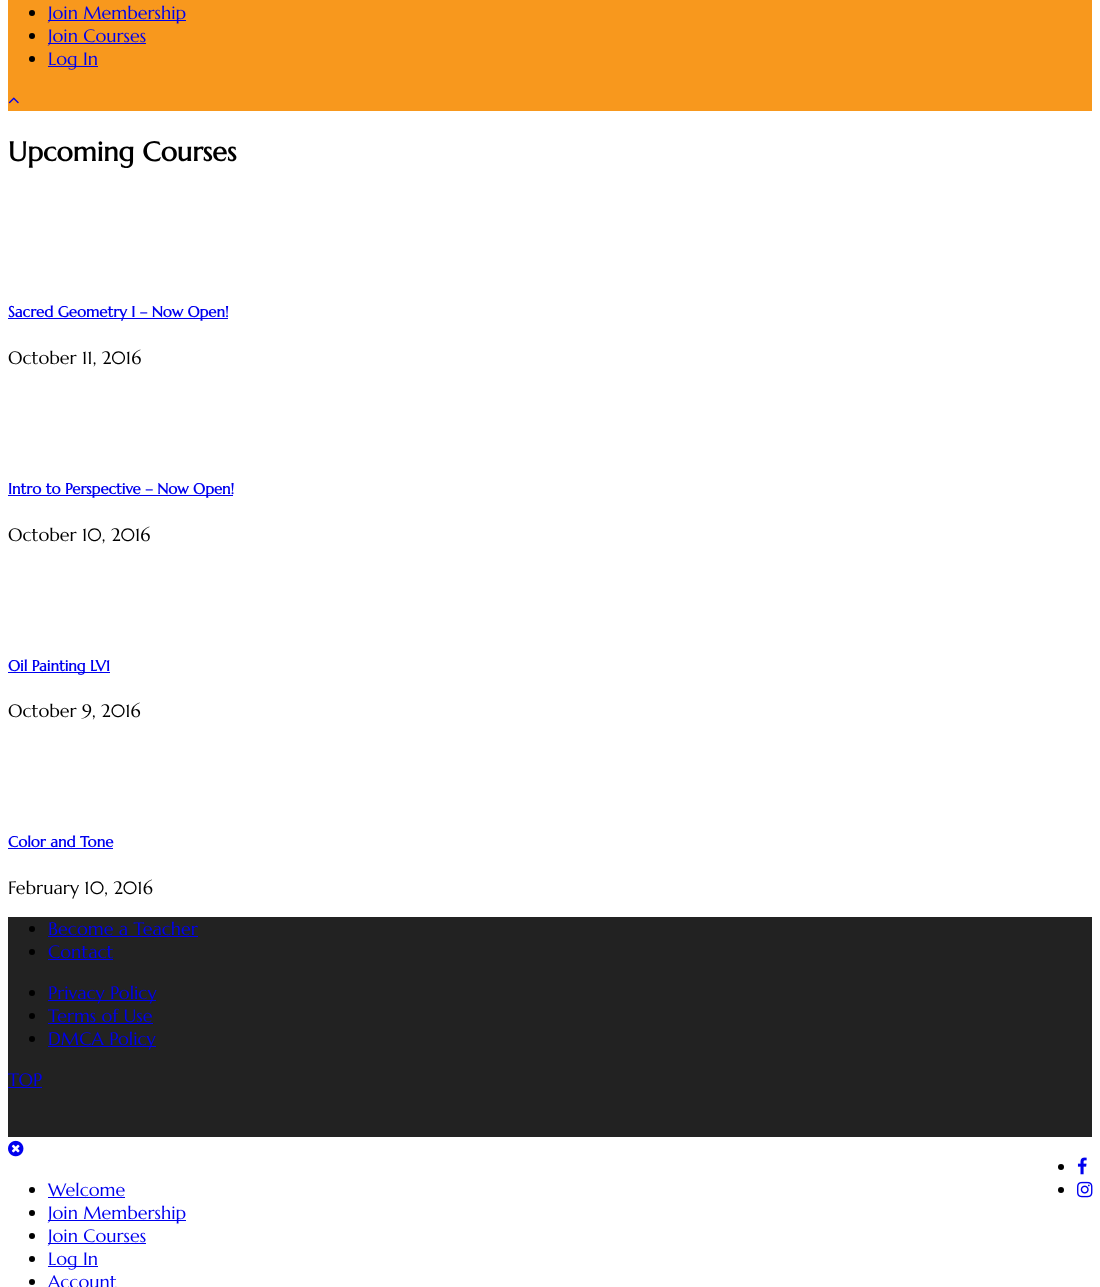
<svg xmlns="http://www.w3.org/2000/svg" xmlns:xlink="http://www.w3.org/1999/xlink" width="1100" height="1287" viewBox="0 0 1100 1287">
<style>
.cls-1{font:18px Marcellus;fill:#0000ee}
.cls-2{font:bold 27px Marcellus;fill:#000000}
.cls-3{font:bold 15px Marcellus;fill:#0000ee}
.cls-4{font:18px Marcellus;fill:#000000}
</style>
<rect width="100%" height="100%" fill="#ffffff"/>
<rect fill="#f8981d" x="8" y="0" width="1084" height="111"/>
<circle fill="#000000" cx="32" cy="13" r="3"/>
<rect fill="#0000ee" x="48" y="20" width="138" height="1"/>
<circle fill="#000000" cx="32" cy="36" r="3"/>
<rect fill="#0000ee" x="48" y="43" width="98" height="1"/>
<circle fill="#000000" cx="32" cy="59" r="3"/>
<rect fill="#0000ee" x="48" y="66" width="50" height="1"/>
<image xlink:href="image0.png" x="8" y="97" width="11" height="7"/>
<rect fill="#0000ee" x="8" y="318" width="220" height="1"/>
<rect fill="#0000ee" x="8" y="495" width="225" height="1"/>
<rect fill="#0000ee" x="8" y="672" width="102" height="1"/>
<rect fill="#0000ee" x="8" y="848" width="105" height="1"/>
<rect fill="#222222" x="8" y="917" width="1084" height="220"/>
<circle fill="#000000" cx="32" cy="929" r="3"/>
<rect fill="#0000ee" x="48" y="936" width="150" height="1"/>
<circle fill="#000000" cx="32" cy="952" r="3"/>
<rect fill="#0000ee" x="48" y="959" width="65" height="1"/>
<circle fill="#000000" cx="32" cy="993" r="3"/>
<rect fill="#0000ee" x="48" y="1000" width="108" height="1"/>
<circle fill="#000000" cx="32" cy="1016" r="3"/>
<rect fill="#0000ee" x="48" y="1023" width="105" height="1"/>
<circle fill="#000000" cx="32" cy="1039" r="3"/>
<rect fill="#0000ee" x="48" y="1046" width="108" height="1"/>
<rect fill="#0000ee" x="8" y="1087" width="34" height="1"/>
<circle fill="#000000" cx="1061" cy="1167" r="3"/>
<image xlink:href="image1.png" x="1077" y="1157" width="10" height="18"/>
<circle fill="#000000" cx="1061" cy="1190" r="3"/>
<image xlink:href="image2.png" x="1077" y="1181" width="16" height="17"/>
<image xlink:href="image3.png" x="8" y="1140" width="16" height="17"/>
<circle fill="#000000" cx="32" cy="1190" r="3"/>
<rect fill="#0000ee" x="48" y="1197" width="77" height="1"/>
<circle fill="#000000" cx="32" cy="1213" r="3"/>
<rect fill="#0000ee" x="48" y="1220" width="138" height="1"/>
<circle fill="#000000" cx="32" cy="1236" r="3"/>
<rect fill="#0000ee" x="48" y="1243" width="98" height="1"/>
<circle fill="#000000" cx="32" cy="1259" r="3"/>
<rect fill="#0000ee" x="48" y="1266" width="50" height="1"/>
<circle fill="#000000" cx="32" cy="1282" r="3"/>
<text class="cls-1"><tspan x="48" y="19">Join Membership</tspan><tspan x="48" y="42">Join Courses</tspan><tspan x="48" y="65">Log In</tspan></text>
<text class="cls-2" x="8" y="161">Upcoming Courses</text>
<text class="cls-3" x="8" y="317">Sacred Geometry I – Now Open!</text>
<text class="cls-4" x="8" y="364">October 11, 2016</text>
<text class="cls-3" x="8" y="494">Intro to Perspective – Now Open!</text>
<text class="cls-4" x="8" y="541">October 10, 2016</text>
<text class="cls-3" x="8" y="671">Oil Painting LV1</text>
<text class="cls-4" x="8" y="717">October 9, 2016</text>
<text class="cls-3" x="8" y="847">Color and Tone</text>
<text class="cls-4" x="8" y="894">February 10, 2016</text>
<text class="cls-1"><tspan x="48" y="935">Become a Teacher</tspan><tspan x="48" y="958">Contact</tspan></text>
<text class="cls-1"><tspan x="48" y="999">Privacy Policy</tspan><tspan x="48" y="1022">Terms of Use</tspan><tspan x="48" y="1045">DMCA Policy</tspan></text>
<text class="cls-1" x="8" y="1086">TOP</text>
<text class="cls-1"><tspan x="48" y="1196">Welcome</tspan><tspan x="48" y="1219">Join Membership</tspan><tspan x="48" y="1242">Join Courses</tspan><tspan x="48" y="1265">Log In</tspan><tspan x="48" y="1288">Account</tspan></text>
</svg>
